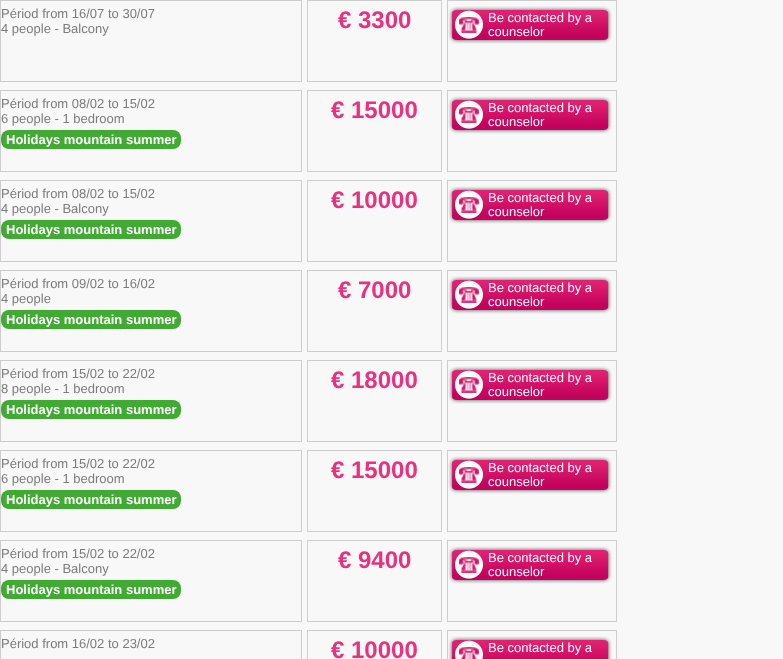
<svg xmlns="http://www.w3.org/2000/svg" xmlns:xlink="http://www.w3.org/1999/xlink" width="783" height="659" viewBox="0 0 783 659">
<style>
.cls-1{font:13px Liberation Sans;fill:#7c7c7c}
.cls-2{font:bold 24px Liberation Sans;fill:#e9317e}
.cls-3{font:13px Liberation Sans;fill:#ffffff}
.cls-4{font:bold 13px Liberation Sans;fill:#ffffff}
</style>
<rect width="100%" height="100%" fill="#f8f8f8"/>
<rect fill="none" stroke="#cdcdcd" x="0.5" y="0.5" width="301" height="81"/>
<rect fill="none" stroke="#cdcdcd" x="307.5" y="0.5" width="134" height="81"/>
<rect fill="none" stroke="#cdcdcd" x="447.5" y="0.5" width="169" height="81"/>
<image xlink:href="image0.png" x="448" y="6" width="164" height="38"/>
<rect fill="none" stroke="#cdcdcd" x="0.5" y="90.5" width="301" height="81"/>
<rect fill="#40aa32" x="1" y="130" width="180" height="19" rx="8"/>
<rect fill="none" stroke="#cdcdcd" x="307.5" y="90.5" width="134" height="81"/>
<rect fill="none" stroke="#cdcdcd" x="447.5" y="90.5" width="169" height="81"/>
<image xlink:href="image0.png" x="448" y="96" width="164" height="38"/>
<rect fill="none" stroke="#cdcdcd" x="0.5" y="180.5" width="301" height="81"/>
<rect fill="#40aa32" x="1" y="220" width="180" height="19" rx="8"/>
<rect fill="none" stroke="#cdcdcd" x="307.5" y="180.5" width="134" height="81"/>
<rect fill="none" stroke="#cdcdcd" x="447.5" y="180.5" width="169" height="81"/>
<image xlink:href="image0.png" x="448" y="186" width="164" height="38"/>
<rect fill="none" stroke="#cdcdcd" x="0.5" y="270.5" width="301" height="81"/>
<rect fill="#40aa32" x="1" y="310" width="180" height="19" rx="8"/>
<rect fill="none" stroke="#cdcdcd" x="307.5" y="270.5" width="134" height="81"/>
<rect fill="none" stroke="#cdcdcd" x="447.5" y="270.5" width="169" height="81"/>
<image xlink:href="image0.png" x="448" y="276" width="164" height="38"/>
<rect fill="none" stroke="#cdcdcd" x="0.5" y="360.5" width="301" height="81"/>
<rect fill="#40aa32" x="1" y="400" width="180" height="19" rx="8"/>
<rect fill="none" stroke="#cdcdcd" x="307.5" y="360.5" width="134" height="81"/>
<rect fill="none" stroke="#cdcdcd" x="447.5" y="360.5" width="169" height="81"/>
<image xlink:href="image0.png" x="448" y="366" width="164" height="38"/>
<rect fill="none" stroke="#cdcdcd" x="0.5" y="450.5" width="301" height="81"/>
<rect fill="#40aa32" x="1" y="490" width="180" height="19" rx="8"/>
<rect fill="none" stroke="#cdcdcd" x="307.5" y="450.5" width="134" height="81"/>
<rect fill="none" stroke="#cdcdcd" x="447.5" y="450.5" width="169" height="81"/>
<image xlink:href="image0.png" x="448" y="456" width="164" height="38"/>
<rect fill="none" stroke="#cdcdcd" x="0.5" y="540.5" width="301" height="81"/>
<rect fill="#40aa32" x="1" y="580" width="180" height="19" rx="8"/>
<rect fill="none" stroke="#cdcdcd" x="307.5" y="540.5" width="134" height="81"/>
<rect fill="none" stroke="#cdcdcd" x="447.5" y="540.5" width="169" height="81"/>
<image xlink:href="image0.png" x="448" y="546" width="164" height="38"/>
<rect fill="none" stroke="#cdcdcd" x="0.5" y="630.5" width="301" height="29"/>
<rect fill="none" stroke="#cdcdcd" x="307.5" y="630.5" width="134" height="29"/>
<rect fill="none" stroke="#cdcdcd" x="447.5" y="630.5" width="169" height="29"/>
<image xlink:href="image1.png" x="448" y="636" width="164" height="23"/>
<text class="cls-1"><tspan x="1" y="18">Périod from 16/07 to 30/07</tspan><tspan x="1" y="33">4 people - Balcony</tspan></text>
<text class="cls-2" x="338" y="28">€ 3300</text>
<text class="cls-3"><tspan x="488" y="22">Be contacted by a</tspan><tspan x="488" y="36">counselor</tspan></text>
<text class="cls-1"><tspan x="1" y="108">Périod from 08/02 to 15/02</tspan><tspan x="1" y="123">6 people - 1 bedroom</tspan></text>
<text class="cls-4" x="6" y="144">Holidays mountain summer</text>
<text class="cls-2" x="331" y="118">€ 15000</text>
<text class="cls-3"><tspan x="488" y="112">Be contacted by a</tspan><tspan x="488" y="126">counselor</tspan></text>
<text class="cls-1"><tspan x="1" y="198">Périod from 08/02 to 15/02</tspan><tspan x="1" y="213">4 people - Balcony</tspan></text>
<text class="cls-4" x="6" y="234">Holidays mountain summer</text>
<text class="cls-2" x="331" y="208">€ 10000</text>
<text class="cls-3"><tspan x="488" y="202">Be contacted by a</tspan><tspan x="488" y="216">counselor</tspan></text>
<text class="cls-1"><tspan x="1" y="288">Périod from 09/02 to 16/02</tspan><tspan x="1" y="303">4 people</tspan></text>
<text class="cls-4" x="6" y="324">Holidays mountain summer</text>
<text class="cls-2" x="338" y="298">€ 7000</text>
<text class="cls-3"><tspan x="488" y="292">Be contacted by a</tspan><tspan x="488" y="306">counselor</tspan></text>
<text class="cls-1"><tspan x="1" y="378">Périod from 15/02 to 22/02</tspan><tspan x="1" y="393">8 people - 1 bedroom</tspan></text>
<text class="cls-4" x="6" y="414">Holidays mountain summer</text>
<text class="cls-2" x="331" y="388">€ 18000</text>
<text class="cls-3"><tspan x="488" y="382">Be contacted by a</tspan><tspan x="488" y="396">counselor</tspan></text>
<text class="cls-1"><tspan x="1" y="468">Périod from 15/02 to 22/02</tspan><tspan x="1" y="483">6 people - 1 bedroom</tspan></text>
<text class="cls-4" x="6" y="504">Holidays mountain summer</text>
<text class="cls-2" x="331" y="478">€ 15000</text>
<text class="cls-3"><tspan x="488" y="472">Be contacted by a</tspan><tspan x="488" y="486">counselor</tspan></text>
<text class="cls-1"><tspan x="1" y="558">Périod from 15/02 to 22/02</tspan><tspan x="1" y="573">4 people - Balcony</tspan></text>
<text class="cls-4" x="6" y="594">Holidays mountain summer</text>
<text class="cls-2" x="338" y="568">€ 9400</text>
<text class="cls-3"><tspan x="488" y="562">Be contacted by a</tspan><tspan x="488" y="576">counselor</tspan></text>
<text class="cls-1" x="1" y="648">Périod from 16/02 to 23/02</text>
<text class="cls-2" x="331" y="658">€ 10000</text>
<text class="cls-3" x="488" y="652">Be contacted by a</text>
</svg>
